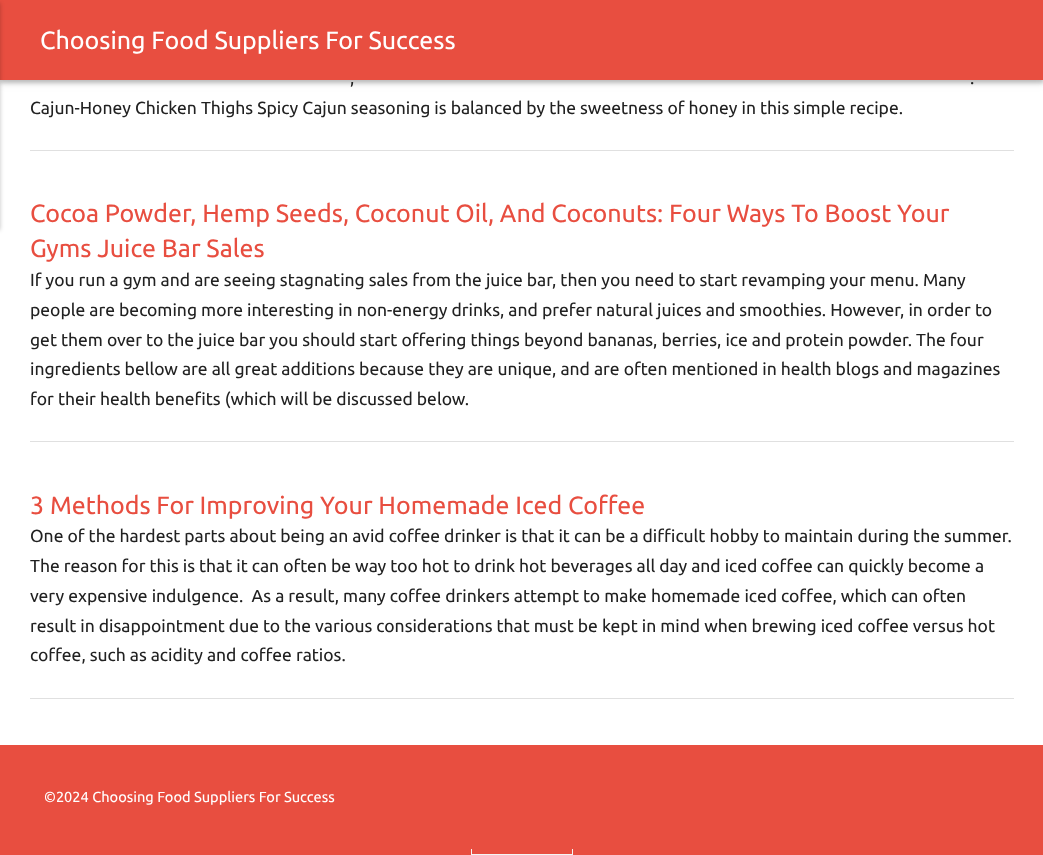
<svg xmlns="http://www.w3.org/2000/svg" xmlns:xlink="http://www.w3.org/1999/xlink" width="1043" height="855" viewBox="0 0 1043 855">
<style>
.cls-1{font:25px Ubuntu;fill:#ffffff}
.cls-2{font:17.5px Ubuntu;fill:#212121}
.cls-3{font:25px Ubuntu;fill:#e84e40}
.cls-4{font:14.6px Ubuntu;fill:#ffffff}
</style>
<rect width="100%" height="100%" fill="#e84e40"/>
<rect fill="#ffffff" x="0" y="80" width="1043" height="665"/>
<rect fill="#000000" fill-opacity="0.05" filter="blur(5px)" x="0" y="4" width="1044" height="80"/>
<rect fill="#000000" fill-opacity="0.24" filter="blur(2px)" x="0" y="3" width="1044" height="80"/>
<rect fill="#e84e40" x="0" y="0" width="1043" height="80"/>
<rect fill="#000000" fill-opacity="0.24" filter="blur(2px)" x="-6" y="3" width="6" height="227"/>
<rect fill="#e0e0e0" x="30" y="150" width="984" height="1"/>
<rect fill="#e0e0e0" x="30" y="441" width="984" height="1"/>
<rect fill="#e0e0e0" x="30" y="698" width="984" height="1"/>
<rect fill="none" stroke="#f4f4f4" x="471.5" y="811.5" width="101" height="43"/>
<rect fill="#e84e40" x="471" y="811" width="102" height="38"/>
<text class="cls-1" x="40" y="49">Choosing Food Suppliers For Success</text>
<text class="cls-2" x="350" y="84">,</text>
<text class="cls-2" x="970" y="84">.</text>
<text class="cls-2" x="30" y="114">Cajun-Honey Chicken Thighs Spicy Cajun seasoning is balanced by the sweetness of honey in this simple recipe.</text>
<text class="cls-3"><tspan x="30" y="222">Cocoa Powder, Hemp Seeds, Coconut Oil, And Coconuts: Four Ways To Boost Your</tspan><tspan x="30" y="257">Gyms Juice Bar Sales</tspan></text>
<text class="cls-2"><tspan x="30" y="286">If you run a gym and are seeing stagnating sales from the juice bar, then you need to start revamping your menu. Many</tspan><tspan x="30" y="316">people are becoming more interesting in non-energy drinks, and prefer natural juices and smoothies. However, in order to</tspan><tspan x="30" y="346">get them over to the juice bar you should start offering things beyond bananas, berries, ice and protein powder. The four</tspan><tspan x="30" y="375">ingredients bellow are all great additions because they are unique, and are often mentioned in health blogs and magazines</tspan><tspan x="30" y="405">for their health benefits (which will be discussed below.</tspan></text>
<text class="cls-3" x="30" y="514">3 Methods For Improving Your Homemade Iced Coffee</text>
<text class="cls-2" xml:space="preserve"><tspan x="30" y="542">One of the hardest parts about being an avid coffee drinker is that it can be a difficult hobby to maintain during the summer.</tspan><tspan x="30" y="572">The reason for this is that it can often be way too hot to drink hot beverages all day and iced coffee can quickly become a</tspan><tspan x="30" y="602">very expensive indulgence.  As a result, many coffee drinkers attempt to make homemade iced coffee, which can often</tspan><tspan x="30" y="632">result in disappointment due to the various considerations that must be kept in mind when brewing iced coffee versus hot</tspan><tspan x="30" y="661">coffee, such as acidity and coffee ratios.</tspan></text>
<text class="cls-4" x="44" y="802">©2024 Choosing Food Suppliers For Success</text>
</svg>
